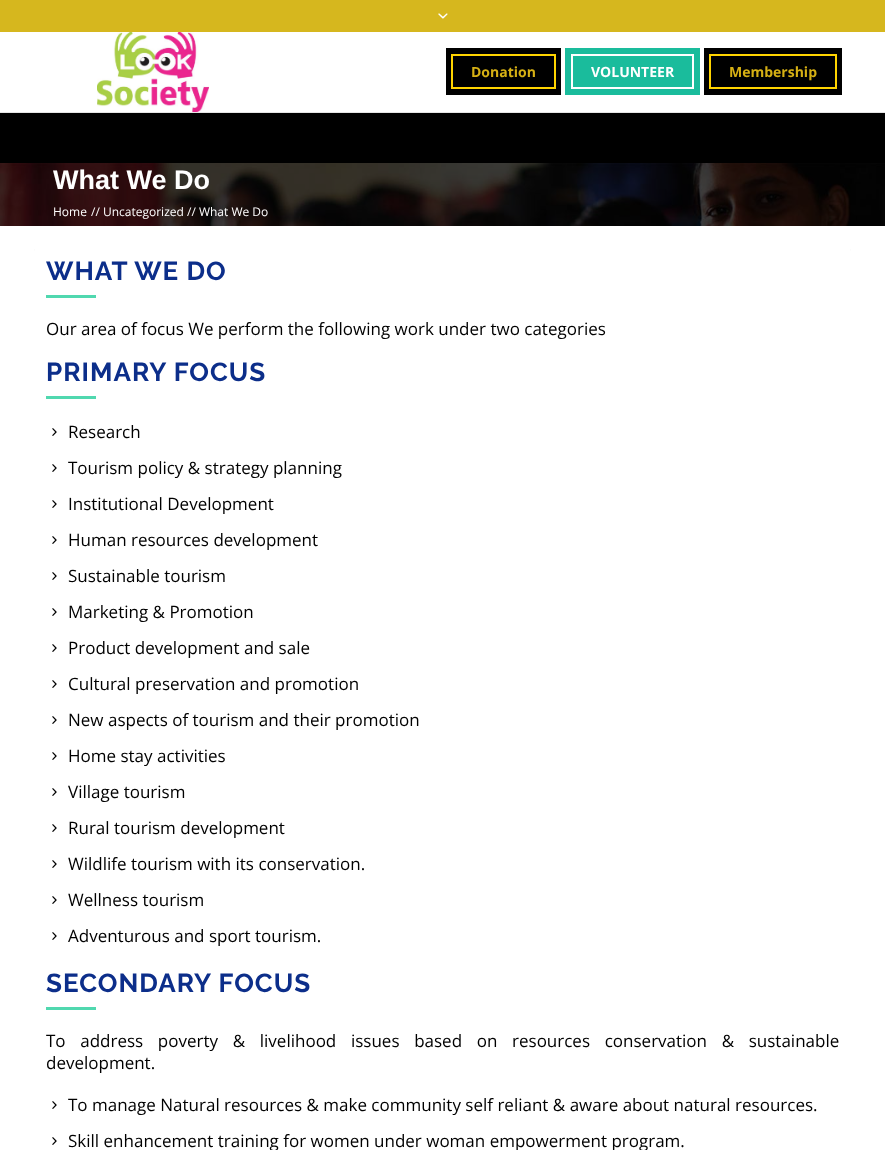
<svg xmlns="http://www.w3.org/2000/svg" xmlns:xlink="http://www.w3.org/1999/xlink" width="885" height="1150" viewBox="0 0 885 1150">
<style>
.cls-1{font:bold 14px Open Sans;fill:#d6b014}
.cls-2{font:bold 14px Open Sans;fill:#ffffff}
.cls-3{font:bold 27px Liberation Sans;fill:#ffffff}
.cls-4{font:12px Open Sans;fill:#ffffff}
.cls-5{font:bold 26px Raleway;letter-spacing:1px;fill:#0c2e8a}
.cls-6{font:17px Open Sans;fill:#000000}
</style>
<rect width="100%" height="100%" fill="#ffffff"/>
<rect fill="#d6b71e" x="0" y="0" width="885" height="32"/>
<image xlink:href="image0.png" x="438" y="13" width="10" height="6"/>
<image xlink:href="image1.png" x="97" y="32" width="112" height="80"/>
<rect fill="#000000" x="446" y="48" width="115" height="47"/>
<rect fill="none" stroke="#ffd400" stroke-width="2" x="452" y="55" width="103" height="33"/>
<rect fill="#1abc9c" x="565" y="48" width="135" height="47"/>
<rect fill="none" stroke="#ffffff" stroke-width="2" x="572" y="55" width="121" height="33"/>
<rect fill="#000000" x="704" y="48" width="138" height="47"/>
<rect fill="none" stroke="#ffd400" stroke-width="2" x="710" y="55" width="126" height="33"/>
<rect fill="#000000" x="0" y="113" width="885" height="50"/>
<rect fill="#e5e5e5" x="0" y="112" width="885" height="1"/>
<image xlink:href="image2.png" x="0" y="163" width="885" height="63"/>
<rect fill="#000000" fill-opacity="0.25" filter="blur(0.5px)" x="34" y="248" width="817" height="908" rx="4"/>
<rect fill="#ffffff" x="34" y="247" width="817" height="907" rx="4"/>
<rect fill="#50d8af" x="46" y="295" width="50" height="3"/>
<rect fill="#50d8af" x="46" y="396" width="50" height="3"/>
<image xlink:href="image3.png" x="52" y="428" width="5" height="8"/>
<image xlink:href="image3.png" x="52" y="464" width="5" height="8"/>
<image xlink:href="image3.png" x="52" y="500" width="5" height="8"/>
<image xlink:href="image3.png" x="52" y="536" width="5" height="8"/>
<image xlink:href="image3.png" x="52" y="572" width="5" height="8"/>
<image xlink:href="image3.png" x="52" y="608" width="5" height="8"/>
<image xlink:href="image3.png" x="52" y="644" width="5" height="8"/>
<image xlink:href="image3.png" x="52" y="680" width="5" height="8"/>
<image xlink:href="image3.png" x="52" y="716" width="5" height="8"/>
<image xlink:href="image3.png" x="52" y="752" width="5" height="8"/>
<image xlink:href="image3.png" x="52" y="788" width="5" height="8"/>
<image xlink:href="image3.png" x="52" y="824" width="5" height="8"/>
<image xlink:href="image3.png" x="52" y="860" width="5" height="8"/>
<image xlink:href="image3.png" x="52" y="896" width="5" height="8"/>
<image xlink:href="image3.png" x="52" y="932" width="5" height="8"/>
<rect fill="#50d8af" x="46" y="1007" width="50" height="3"/>
<image xlink:href="image3.png" x="52" y="1101" width="5" height="8"/>
<image xlink:href="image3.png" x="52" y="1137" width="5" height="8"/>
<text class="cls-1" x="471" y="77">Donation</text>
<text class="cls-2" x="591" y="77">VOLUNTEER</text>
<text class="cls-1" x="729" y="77">Membership</text>
<text class="cls-3" x="53" y="189">What We Do</text>
<text class="cls-4" x="53" y="216">Home</text>
<text class="cls-4" x="91" y="216">// Uncategorized</text>
<text class="cls-4" x="187" y="216">// What We Do</text>
<text class="cls-5" x="46" y="280">WHAT WE DO</text>
<text class="cls-6" x="46" y="335">Our area of focus We perform the following work under two categories</text>
<text class="cls-5" x="46" y="381">PRIMARY FOCUS</text>
<text class="cls-6" x="68" y="438">Research</text>
<text class="cls-6" x="68" y="474">Tourism policy &amp; strategy planning</text>
<text class="cls-6" x="68" y="510">Institutional Development</text>
<text class="cls-6" x="68" y="546">Human resources development</text>
<text class="cls-6" x="68" y="582">Sustainable tourism</text>
<text class="cls-6" x="68" y="618">Marketing &amp; Promotion</text>
<text class="cls-6" x="68" y="654">Product development and sale</text>
<text class="cls-6" x="68" y="690">Cultural preservation and promotion</text>
<text class="cls-6" x="68" y="726">New aspects of tourism and their promotion</text>
<text class="cls-6" x="68" y="762">Home stay activities</text>
<text class="cls-6" x="68" y="798">Village tourism</text>
<text class="cls-6" x="68" y="834">Rural tourism development</text>
<text class="cls-6" x="68" y="870">Wildlife tourism with its conservation.</text>
<text class="cls-6" x="68" y="906">Wellness tourism</text>
<text class="cls-6" x="68" y="942">Adventurous and sport tourism.</text>
<text class="cls-5" x="46" y="992">SECONDARY FOCUS</text>
<text class="cls-6"><tspan x="46" y="1047" word-spacing="10.25">To address poverty &amp; livelihood issues based on resources conservation &amp; sustainable</tspan><tspan x="46" y="1069">development.</tspan></text>
<text class="cls-6" x="68" y="1111">To manage Natural resources &amp; make community self reliant &amp; aware about natural resources.</text>
<text class="cls-6" x="68" y="1147">Skill enhancement training for women under woman empowerment program.</text>
</svg>
